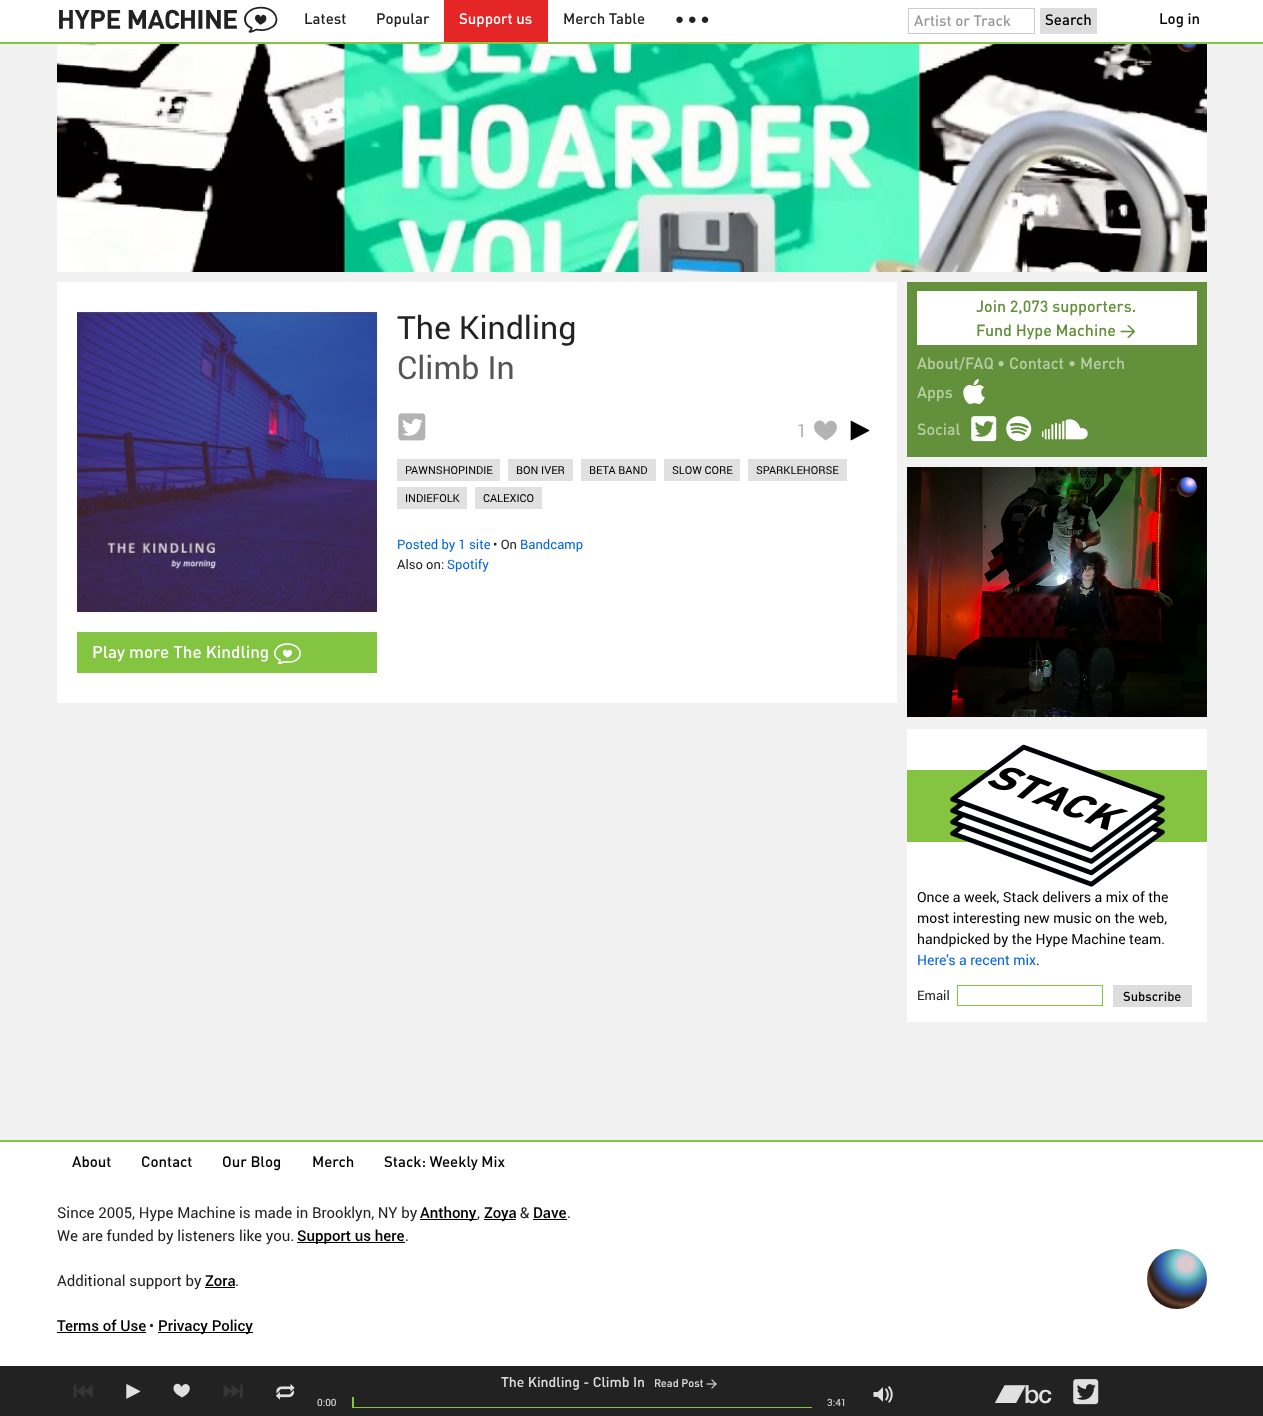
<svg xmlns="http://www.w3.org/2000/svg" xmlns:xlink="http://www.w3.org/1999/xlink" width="1263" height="1416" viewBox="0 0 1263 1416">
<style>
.cls-1{font:38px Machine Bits;fill:#222222}
.cls-2{font:500 15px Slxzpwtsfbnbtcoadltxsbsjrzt;fill:#222222}
.cls-3{font:500 15px Slxzpwtsfbnbtcoadltxsbsjrzt;fill:#ffffff}
.cls-4{font:bold 15px Liberation Serif;fill:#222222}
.cls-5{font:500 15px Slxzpwtsfbnbtcoadltxsbsjrzt;fill:#999999}
.cls-6{font:500 15px Slxzpwtsfbnbtcoadltxsbsjrzt;fill:#000000}
.cls-7{font:32px Roboto;fill:#222222}
.cls-8{font:32px Roboto;fill:#555555}
.cls-9{font:18px Roboto;fill:#b3b3b3}
.cls-10{font:11px Roboto;fill:#000000}
.cls-11{font:13px Roboto;fill:#0063dc}
.cls-12{font:13px Roboto;fill:#222222}
.cls-13{font:500 17px Slxzpwtsfbnbtcoadltxsbsjrzt;fill:#ffffff}
.cls-14{font:21px Machine Bits;fill:#ffffff}
.cls-15{font:500 16px Slxzpwtsfbnbtcoadltxsbsjrzt;fill:#63903a}
.cls-16{font:500 16px Slxzpwtsfbnbtcoadltxsbsjrzt;fill:#b9cda5}
.cls-17{font:20px Machine Bits;fill:#ffffff}
.cls-18{font:14px Roboto;fill:#000000}
.cls-19{font:14px Roboto;fill:#0063dc}
.cls-20{font:500 13px Slxzpwtsfbnbtcoadltxsbsjrzt;fill:#000000}
.cls-21{font:15px Roboto;fill:#222222}
.cls-22{font:500 15px Roboto;fill:#000000}
.cls-23{font:500 14px Slxzpwtsfbnbtcoadltxsbsjrzt;fill:#e0e0e0}
.cls-24{font:500 11px Slxzpwtsfbnbtcoadltxsbsjrzt;fill:#e0e0e0}
.cls-25{font:18px Machine Bits;fill:#e0e0e0}
.cls-26{font:10px Roboto;fill:#e0e0e0}
</style>
<defs>
<radialGradient id="g1" gradientUnits="userSpaceOnUse" cx="1186" cy="1264" r="45"><stop offset="0.16" stop-color="#dcc8d0"/><stop offset="0.3" stop-color="#78c8cf"/><stop offset="0.43" stop-color="#4d959e"/><stop offset="0.56" stop-color="#305eb9"/><stop offset="0.8" stop-color="#311f12"/><stop offset="0.91" stop-color="#684232"/><stop offset="1" stop-color="#2d1c13"/></radialGradient>
<clipPath id="clip1"><rect x="917" y="357" width="280" height="16"/></clipPath>
</defs>
<rect width="100%" height="100%" fill="#f1f1f1"/>
<rect fill="#ffffff" x="0" y="0" width="1263" height="42"/>
<rect fill="#83c441" x="0" y="42" width="1263" height="2"/>
<rect fill="#e42626" x="444" y="0" width="104" height="42"/>
<rect fill="none" stroke="#cccccc" x="908.5" y="8.5" width="126" height="25"/>
<rect fill="#dddddd" x="1040" y="8" width="57" height="26"/>
<image xlink:href="image0.png" x="57" y="44" width="1150" height="228"/>
<rect fill="#ffffff" x="57" y="282" width="840" height="421"/>
<image xlink:href="image1.png" x="77" y="312" width="300" height="300"/>
<image xlink:href="image2.png" x="398" y="413" width="28" height="28"/>
<path fill="#b3b3b3" d="M825.5 425C830 414.5 845 425.5 831.5 436.5L825.5 440.5L818.5 435C807 424.5 821 414.5 825.5 425Z"/>
<image xlink:href="image3.png" x="850" y="420" width="20" height="21"/>
<rect fill="#e0e0e0" x="397" y="459" width="103" height="22"/>
<rect fill="#e0e0e0" x="508" y="459" width="65" height="22"/>
<rect fill="#e0e0e0" x="581" y="459" width="75" height="22"/>
<rect fill="#e0e0e0" x="664" y="459" width="76" height="22"/>
<rect fill="#e0e0e0" x="748" y="459" width="99" height="22"/>
<rect fill="#e0e0e0" x="397" y="487" width="70" height="22"/>
<rect fill="#e0e0e0" x="475" y="487" width="67" height="22"/>
<rect fill="#83c441" x="77" y="632" width="300" height="41"/>
<rect fill="#63903a" x="907" y="282" width="300" height="175"/>
<rect fill="#ffffff" x="917" y="291" width="280" height="54"/>
<image xlink:href="image4.png" x="963" y="379" width="22" height="26"/>
<image xlink:href="image5.png" x="971" y="416" width="26" height="26"/>
<image xlink:href="image6.png" x="1006" y="416" width="26" height="26"/>
<image xlink:href="image7.png" x="907" y="467" width="300" height="250"/>
<rect fill="#ffffff" x="907" y="729" width="300" height="293"/>
<image xlink:href="image8.png" x="907" y="744" width="300" height="143"/>
<rect fill="none" stroke="#83c441" x="957.5" y="985.5" width="145" height="20"/>
<rect fill="#dddddd" x="1113" y="985" width="79" height="22"/>
<rect fill="#ffffff" x="0" y="1142" width="1263" height="224"/>
<rect fill="#83c441" x="0" y="1140" width="1263" height="2"/>
<rect fill="#000000" x="420" y="1219" width="57" height="1"/>
<rect fill="#000000" x="484" y="1219" width="32" height="1"/>
<rect fill="#000000" x="533" y="1219" width="34" height="1"/>
<rect fill="#000000" x="297" y="1242" width="108" height="1"/>
<rect fill="#000000" x="205" y="1287" width="30" height="1"/>
<circle fill="url(#g1)" cx="1177" cy="1279" r="30"/>
<rect fill="#000000" x="57" y="1332" width="89" height="1"/>
<rect fill="#000000" x="158" y="1332" width="95" height="1"/>
<rect fill="#222222" x="0" y="1366" width="1263" height="50"/>
<image xlink:href="image9.png" x="73" y="1384" width="20" height="14"/>
<image xlink:href="image10.png" x="126" y="1384" width="15" height="15"/>
<path fill="#e0e0e0" d="M181.5 1387C185 1379.5 195.5 1387 186 1395L182 1397.5L176.5 1394C168.5 1386.5 178.5 1379.5 181.5 1387Z"/>
<image xlink:href="image11.png" x="223" y="1384" width="20" height="14"/>
<image xlink:href="image12.png" x="275" y="1383" width="20" height="17"/>
<image xlink:href="image13.png" x="1073" y="1379" width="26" height="26"/>
<rect fill="#83c441" x="352" y="1407" width="460" height="1"/>
<rect fill="#83c441" x="352" y="1397" width="2" height="10"/>
<image xlink:href="image14.png" x="873" y="1386" width="20" height="17"/>
<text class="cls-1" x="57" y="28">1</text>
<text class="cls-2" x="304" y="24">Latest</text>
<text class="cls-2" x="376" y="24">Popular</text>
<text class="cls-3" x="459" y="24">Support us</text>
<text class="cls-2" x="563" y="24">Merch Table</text>
<text class="cls-4" x="675" y="24">● ● ●</text>
<text class="cls-5" x="914" y="26">Artist or Track</text>
<text class="cls-6" x="1045" y="25">Search</text>
<text class="cls-6" x="1159" y="24">Log in</text>
<text class="cls-7" x="397" y="339">The Kindling</text>
<text class="cls-8" x="397" y="379">Climb In</text>
<text class="cls-9" x="797" y="437">1</text>
<text class="cls-10" x="405" y="474">PAWNSHOPINDIE</text>
<text class="cls-10" x="516" y="474">BON IVER</text>
<text class="cls-10" x="589" y="474">BETA BAND</text>
<text class="cls-10" x="672" y="474">SLOW CORE</text>
<text class="cls-10" x="756" y="474">SPARKLEHORSE</text>
<text class="cls-10" x="405" y="502">INDIEFOLK</text>
<text class="cls-10" x="483" y="502">CALEXICO</text>
<text class="cls-11" x="397" y="549">Posted by 1 site</text>
<text class="cls-12" x="493" y="549">• On</text>
<text class="cls-11" x="520" y="549">Bandcamp</text>
<text class="cls-12" x="397" y="569">Also on:</text>
<text class="cls-11" x="447" y="569">Spotify</text>
<text class="cls-13" x="92" y="658">Play more The Kindling</text>
<text class="cls-14" x="273" y="658">2</text>
<text class="cls-15"><tspan x="976" y="312">Join 2,073 supporters.</tspan><tspan x="976" y="336">Fund Hype Machine →</tspan></text>
<g clip-path="url(#clip1)">
<text class="cls-16" x="917" y="369">About/FAQ</text>
</g>
<text class="cls-16" x="997" y="369">•</text>
<text class="cls-16" x="1009" y="369">Contact</text>
<text class="cls-16" x="1068" y="369">•</text>
<text class="cls-16" x="1080" y="369">Merch</text>
<text class="cls-16" x="917" y="398">Apps</text>
<text class="cls-16" x="917" y="435">Social</text>
<text class="cls-17" x="1041" y="437">9</text>
<text class="cls-18"><tspan x="917" y="902">Once a week, Stack delivers a mix of the</tspan><tspan x="917" y="923">most interesting new music on the web,</tspan><tspan x="917" y="944">handpicked by the Hype Machine team.</tspan></text>
<text class="cls-19" x="917" y="965">Here's a recent mix</text>
<text class="cls-18" x="1036" y="965">.</text>
<text class="cls-12" x="917" y="1000">Email</text>
<text class="cls-20" x="1123" y="1001">Subscribe</text>
<text class="cls-6" x="72" y="1167">About</text>
<text class="cls-6" x="141" y="1167">Contact</text>
<text class="cls-6" x="222" y="1167">Our Blog</text>
<text class="cls-6" x="312" y="1167">Merch</text>
<text class="cls-6" x="384" y="1167">Stack: Weekly Mix</text>
<text class="cls-21" x="57" y="1218">Since 2005, Hype Machine is made in Brooklyn, NY by</text>
<text class="cls-22" x="420" y="1218">Anthony</text>
<text class="cls-21" x="477" y="1218">,</text>
<text class="cls-22" x="484" y="1218">Zoya</text>
<text class="cls-21" x="520" y="1218">&amp;</text>
<text class="cls-22" x="533" y="1218">Dave</text>
<text class="cls-21" x="567" y="1218">.</text>
<text class="cls-21" x="57" y="1241">We are funded by listeners like you.</text>
<text class="cls-22" x="297" y="1241">Support us here</text>
<text class="cls-21" x="405" y="1241">.</text>
<text class="cls-21" x="57" y="1286">Additional support by</text>
<text class="cls-22" x="205" y="1286">Zora</text>
<text class="cls-21" x="235" y="1286">.</text>
<text class="cls-22" x="57" y="1331">Terms of Use</text>
<text class="cls-21" x="149" y="1331">•</text>
<text class="cls-22" x="158" y="1331">Privacy Policy</text>
<text class="cls-23" x="501" y="1387">The Kindling - Climb In</text>
<text class="cls-24" x="654" y="1387">Read Post →</text>
<text class="cls-25" x="995" y="1401">5</text>
<text class="cls-26" x="317" y="1406">0:00</text>
<text class="cls-26" x="827" y="1406">3:41</text>
</svg>
